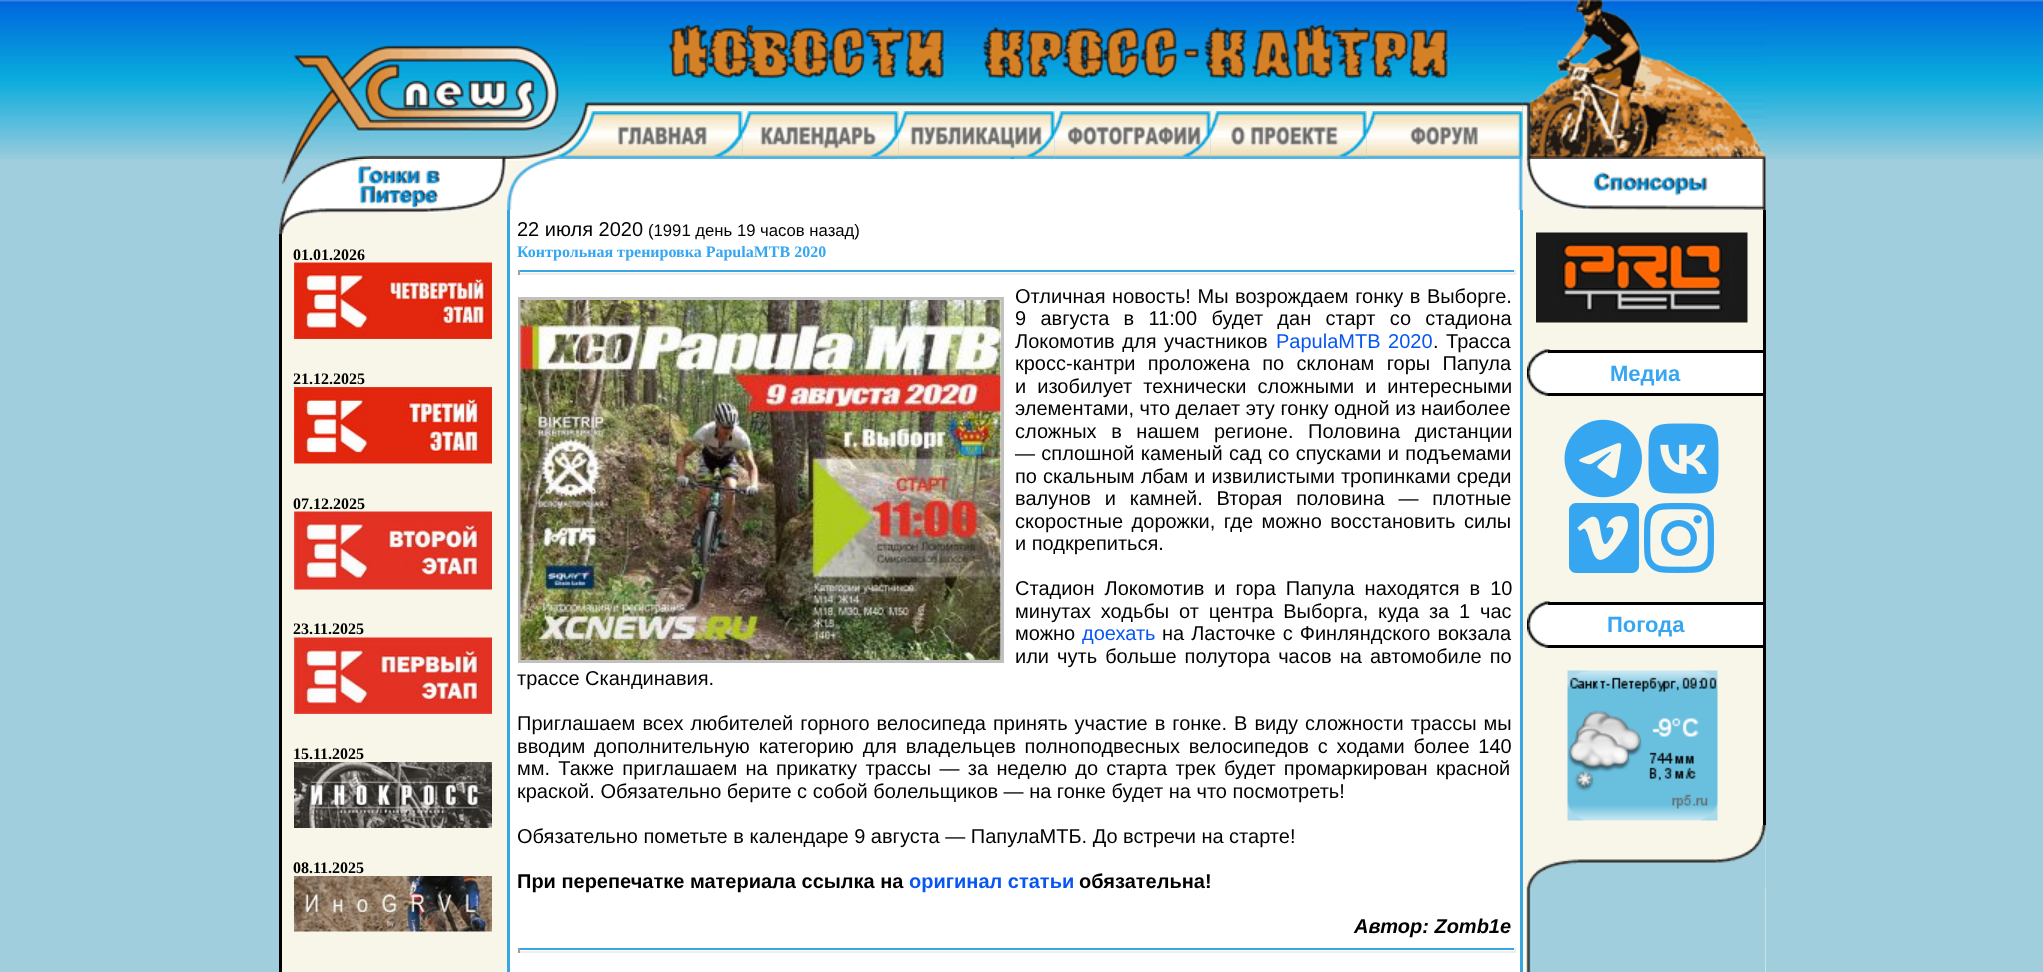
<svg xmlns="http://www.w3.org/2000/svg" xmlns:xlink="http://www.w3.org/1999/xlink" width="2043" height="972" viewBox="0 0 2043 972">
<style>
.cls-1{font:bold 16px Liberation Serif;fill:#000000}
.cls-2{font:20px Liberation Sans;fill:#000000}
.cls-3{font:16.7px Liberation Sans;fill:#000000}
.cls-4{font:bold 16px Liberation Serif;fill:#37a6f1}
.cls-5{font:20px Liberation Sans;fill:#0756f1}
.cls-6{font:bold 20px Liberation Sans;fill:#000000}
.cls-7{font:bold 20px Liberation Sans;fill:#0756f1}
.cls-8{font:italic bold 20px Liberation Sans;fill:#000000}
.cls-9{font:bold 22px Liberation Sans;fill:#37a6f1}
</style>
<rect width="100%" height="100%" fill="#ffffff"/>
<image xlink:href="image0.png" x="0" y="0" width="2043" height="159"/>
<image xlink:href="image1.png" x="290" y="45" width="270" height="114"/>
<image xlink:href="image2.png" x="582" y="24" width="941" height="87"/>
<image xlink:href="image3.png" x="1522" y="0" width="244" height="159"/>
<image xlink:href="image4.png" x="559" y="111" width="184" height="48"/>
<image xlink:href="image5.png" x="742" y="111" width="157" height="48"/>
<image xlink:href="image6.png" x="898" y="111" width="157" height="48"/>
<image xlink:href="image7.png" x="1054" y="111" width="157" height="48"/>
<image xlink:href="image8.png" x="1210" y="111" width="157" height="48"/>
<image xlink:href="image9.png" x="1366" y="111" width="157" height="48"/>
<rect fill="#a0cedd" x="0" y="159" width="2043" height="813"/>
<image xlink:href="image10.png" x="279" y="159" width="228" height="75"/>
<rect fill="#f8f6e9" x="282" y="234" width="225" height="738"/>
<rect fill="#000000" x="279" y="234" width="3" height="738"/>
<image xlink:href="image11.png" x="294" y="262" width="198" height="77"/>
<image xlink:href="image12.png" x="294" y="387" width="198" height="77"/>
<image xlink:href="image13.png" x="294" y="511" width="198" height="79"/>
<image xlink:href="image14.png" x="294" y="637" width="198" height="77"/>
<image xlink:href="image15.png" x="294" y="762" width="198" height="66"/>
<image xlink:href="image16.png" x="294" y="876" width="198" height="56"/>
<rect fill="#ffffff" x="510" y="159" width="1013" height="813"/>
<image xlink:href="image17.png" x="507" y="159" width="50" height="51"/>
<image xlink:href="image18.png" x="1517" y="159" width="6" height="51"/>
<rect fill="#37a6e1" x="1520" y="210" width="3" height="762"/>
<rect fill="#37a6e1" x="507" y="210" width="3" height="762"/>
<rect fill="#37a6e1" x="518" y="270" width="997" height="2"/>
<rect fill="#eeeeee" x="1514" y="270" width="2" height="5"/>
<rect fill="#eeeeee" x="518" y="273" width="997" height="2"/>
<rect fill="#9f9f9f" x="518" y="270" width="2" height="5"/>
<rect fill="none" stroke="#c0c0c0" stroke-width="3" x="519.5" y="298.5" width="483" height="363"/>
<image xlink:href="image19.png" x="520" y="300" width="481" height="360"/>
<rect fill="#37a6e1" x="518" y="948" width="997" height="2"/>
<rect fill="#eeeeee" x="1514" y="948" width="2" height="5"/>
<rect fill="#eeeeee" x="518" y="951" width="997" height="2"/>
<rect fill="#9f9f9f" x="518" y="948" width="2" height="5"/>
<rect fill="#f8f6e9" x="1765" y="159" width="1" height="813"/>
<image xlink:href="image20.png" x="1523" y="159" width="243" height="813"/>
<image xlink:href="image21.png" x="1523" y="159" width="243" height="51"/>
<rect fill="#f8f6e9" x="1523" y="210" width="240" height="615"/>
<rect fill="#000000" x="1763" y="210" width="3" height="615"/>
<image xlink:href="image22.png" x="1536" y="232" width="212" height="91"/>
<image xlink:href="image23.png" x="1527" y="349" width="23" height="47"/>
<rect fill="#ffffff" x="1548" y="353" width="215" height="40"/>
<rect fill="#000000" x="1548" y="350" width="215" height="3"/>
<rect fill="#000000" x="1548" y="393" width="215" height="3"/>
<image xlink:href="image24.png" x="1564" y="419" width="78" height="79"/>
<image xlink:href="image25.png" x="1648" y="423" width="71" height="71"/>
<image xlink:href="image26.png" x="1569" y="503" width="70" height="70"/>
<image xlink:href="image27.png" x="1644" y="503" width="70" height="70"/>
<image xlink:href="image23.png" x="1527" y="601" width="23" height="47"/>
<rect fill="#ffffff" x="1548" y="605" width="215" height="40"/>
<rect fill="#000000" x="1548" y="602" width="215" height="3"/>
<rect fill="#000000" x="1548" y="645" width="215" height="3"/>
<image xlink:href="image28.png" x="1567" y="670" width="151" height="151"/>
<image xlink:href="image29.png" x="1523" y="825" width="243" height="63"/>
<text class="cls-1" x="293" y="260">01.01.2026</text>
<text class="cls-1" x="293" y="384">21.12.2025</text>
<text class="cls-1" x="293" y="509">07.12.2025</text>
<text class="cls-1" x="293" y="634">23.11.2025</text>
<text class="cls-1" x="293" y="759">15.11.2025</text>
<text class="cls-1" x="293" y="873">08.11.2025</text>
<text class="cls-2" x="517" y="236">22 июля 2020</text>
<text class="cls-3" x="648" y="236">(1991 день 19 часов назад)</text>
<text class="cls-4" x="517" y="257">Контрольная тренировка PapulaMTB 2020</text>
<text class="cls-2"><tspan x="1015" y="303" word-spacing="1">Отличная новость! Мы возрождаем гонку в Выборге.</tspan><tspan x="1015" y="325" word-spacing="8.75">9 августа в 11:00 будет дан старт со стадиона</tspan><tspan x="1015" y="348" word-spacing="2">Локомотив для участников</tspan></text>
<text class="cls-5" x="1276" y="348" word-spacing="2">PapulaMTB 2020</text>
<text class="cls-2" x="1433" y="348" word-spacing="2">. Трасса</text>
<text class="cls-2"><tspan x="1015" y="370" word-spacing="6.75">кросс-кантри проложена по склонам горы Папула</tspan><tspan x="1015" y="393" word-spacing="5.5">и изобилует технически сложными и интересными</tspan><tspan x="1015" y="415">элементами, что делает эту гонку одной из наиболее</tspan><tspan x="1015" y="438" word-spacing="9">сложных в нашем регионе. Половина дистанции</tspan><tspan x="1015" y="460" word-spacing="0.75">— сплошной каменый сад со спусками и подъемами</tspan><tspan x="1015" y="483" word-spacing="0.5">по скальным лбам и извилистыми тропинками среди</tspan><tspan x="1015" y="505" word-spacing="8.25">валунов и камней. Вторая половина — плотные</tspan><tspan x="1015" y="528" word-spacing="3">скоростные дорожки, где можно восстановить силы</tspan><tspan x="1015" y="550">и подкрепиться.</tspan></text>
<text class="cls-2"><tspan x="1015" y="595" word-spacing="4.5">Стадион Локомотив и гора Папула находятся в 10</tspan><tspan x="1015" y="618" word-spacing="4.25">минутах ходьбы от центра Выборга, куда за 1 час</tspan><tspan x="1015" y="640">можно</tspan></text>
<text class="cls-5" x="1082" y="640">доехать</text>
<text class="cls-2" x="1162" y="640" word-spacing="1.5">на Ласточке с Финляндского вокзала</text>
<text class="cls-2" x="1015" y="663" word-spacing="2.5">или чуть больше полутора часов на автомобиле по</text>
<text class="cls-2" x="517" y="685">трассе Скандинавия.</text>
<text class="cls-2"><tspan x="517" y="730" word-spacing="1.5">Приглашаем всех любителей горного велосипеда принять участие в гонке. В виду сложности трассы мы</tspan><tspan x="517" y="753" word-spacing="3.25">вводим дополнительную категорию для владельцев полноподвесных велосипедов с ходами более 140</tspan><tspan x="517" y="775" word-spacing="2.75">мм. Также приглашаем на прикатку трассы — за неделю до старта трек будет промаркирован красной</tspan><tspan x="517" y="798">краской. Обязательно берите с собой болельщиков — на гонке будет на что посмотреть!</tspan></text>
<text class="cls-2" x="517" y="843">Обязательно пометьте в календаре 9 августа — ПапулаМТБ. До встречи на старте!</text>
<text class="cls-6" x="517" y="888">При перепечатке материала ссылка на</text>
<text class="cls-7" x="909" y="888">оригинал статьи</text>
<text class="cls-6" x="1079" y="888">обязательна!</text>
<text class="cls-8" x="1354" y="933">Автор: Zomb1e</text>
<text class="cls-9" x="1610" y="381">Медиа</text>
<text class="cls-9" x="1607" y="632">Погода</text>
</svg>
